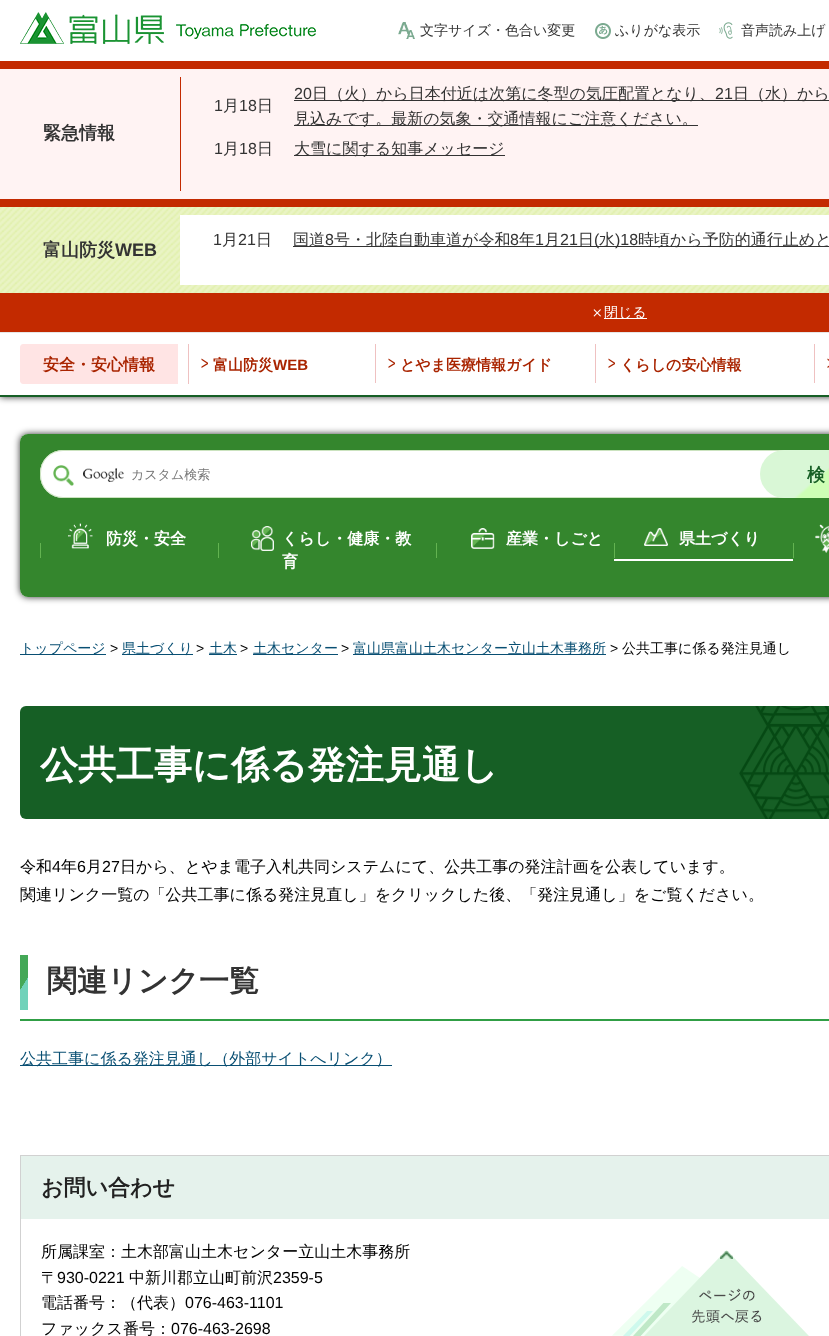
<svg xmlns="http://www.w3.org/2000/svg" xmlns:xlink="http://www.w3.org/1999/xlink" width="829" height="1336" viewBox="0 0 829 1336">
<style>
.cls-1{font:500 14px WenQuanYi Zen Hei;fill:#333333}
.cls-2{font:bold 18px WenQuanYi Zen Hei;fill:#333333}
.cls-3{font:16px Liberation Sans;fill:#333333}
.cls-4{font:500 16px WenQuanYi Zen Hei;fill:#333333}
.cls-5{font:bold 18px Liberation Sans;fill:#333333}
.cls-6{font:500 14px WenQuanYi Zen Hei;fill:#ffffff}
.cls-7{font:bold 16px WenQuanYi Zen Hei;fill:#a92400}
.cls-8{font:bold 15px WenQuanYi Zen Hei;fill:#a92400}
.cls-9{font:bold 15px Liberation Sans;fill:#a92400}
.cls-10{font:500 13px WenQuanYi Zen Hei;fill:#757575}
.cls-11{font:bold 18px WenQuanYi Zen Hei;letter-spacing:2px;fill:#165f25}
.cls-12{font:bold 16px WenQuanYi Zen Hei;fill:#ffffff}
.cls-13{font:500 14px WenQuanYi Zen Hei;fill:#094f73}
.cls-14{font:14px Liberation Sans;fill:#000000}
.cls-15{font:500 14px WenQuanYi Zen Hei;fill:#000000}
.cls-16{font:bold 38px WenQuanYi Zen Hei;fill:#ffffff}
.cls-17{font:500 16px WenQuanYi Zen Hei;fill:#000000}
.cls-18{font:16px Liberation Sans;fill:#000000}
.cls-19{font:bold 30px WenQuanYi Zen Hei;fill:#333333}
.cls-20{font:500 16px WenQuanYi Zen Hei;fill:#094f73}
.cls-21{font:bold 22px WenQuanYi Zen Hei;fill:#222222}
</style>
<defs>
<clipPath id="clip1"><path d="M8 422H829V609H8ZM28 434H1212C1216.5 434 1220 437.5 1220 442V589C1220 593.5 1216.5 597 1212 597H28C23.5 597 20 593.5 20 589V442C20 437.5 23.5 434 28 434Z" clip-rule="evenodd"/></clipPath>
</defs>
<rect width="100%" height="100%" fill="#ffffff"/>
<rect fill="#000000" fill-opacity="0.8" filter="blur(3.5px)" x="0" y="0" width="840" height="397"/>
<rect fill="#ffffff" x="0" y="0" width="829" height="395"/>
<rect fill="#165f25" x="0" y="395" width="829" height="2"/>
<image xlink:href="image0.png" x="20" y="12" width="296" height="32"/>
<image xlink:href="image1.png" x="398" y="22" width="17" height="17"/>
<image xlink:href="image2.png" x="595" y="23" width="16" height="16"/>
<image xlink:href="image3.png" x="719" y="22" width="14" height="17"/>
<rect fill="#c32a00" x="0" y="61" width="829" height="271"/>
<rect fill="#fff3f3" x="0" y="69" width="829" height="130"/>
<rect fill="#c32a00" x="180" y="77" width="1" height="114"/>
<rect fill="#333333" x="294" y="100" width="535" height="1"/>
<rect fill="#333333" x="294" y="125" width="404" height="1"/>
<rect fill="#333333" x="294" y="155" width="211" height="1"/>
<image xlink:href="image4.png" x="0" y="207" width="829" height="86"/>
<rect fill="#ffffff" x="180" y="215" width="649" height="70"/>
<rect fill="#333333" x="293" y="246" width="536" height="1"/>
<image xlink:href="image5.png" x="593" y="309" width="8" height="8"/>
<rect fill="#ffffff" x="604" y="318" width="43" height="1"/>
<rect fill="#e6e6e6" x="0" y="332" width="829" height="1"/>
<rect fill="#efc1c1" x="188" y="344" width="1" height="40"/>
<path fill="#ffe4e4" d="M23 344H178V384H23C21.5 384 20 382.5 20 381V347C20 345.5 21.5 344 23 344Z"/>
<rect fill="#efc1c1" x="375" y="344" width="1" height="39"/>
<image xlink:href="image6.png" x="201" y="358" width="7" height="10"/>
<rect fill="#efc1c1" x="595" y="344" width="1" height="39"/>
<image xlink:href="image6.png" x="388" y="358" width="7" height="10"/>
<rect fill="#efc1c1" x="814" y="344" width="1" height="39"/>
<image xlink:href="image6.png" x="608" y="358" width="7" height="10"/>
<image xlink:href="image7.png" x="827" y="358" width="2" height="10"/>
<g clip-path="url(#clip1)">
<rect fill="#000000" fill-opacity="0.8" filter="blur(3.5px)" x="20" y="434" width="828" height="163" rx="8"/>
</g>
<rect fill="#1e7916" fill-opacity="0.9" x="20" y="434" width="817" height="163" rx="8"/>
<rect fill="#ffffff" x="40" y="450" width="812" height="48" rx="23"/>
<image xlink:href="image9.png" x="83" y="468" width="41" height="14"/>
<rect fill="none" stroke="#cbe3bf" x="40.5" y="450.5" width="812" height="47" rx="22.5"/>
<image xlink:href="image8.png" x="53" y="465" width="21" height="21"/>
<image xlink:href="image10.png" x="760" y="450" width="69" height="48"/>
<rect fill="#63b351" x="40" y="543" width="1" height="15"/>
<image xlink:href="image11.png" x="68" y="523" width="25" height="26"/>
<rect fill="#63b351" x="218" y="543" width="1" height="15"/>
<image xlink:href="image12.png" x="251" y="526" width="23" height="25"/>
<rect fill="#63b351" x="436" y="543" width="1" height="15"/>
<image xlink:href="image13.png" x="471" y="528" width="24" height="21"/>
<rect fill="#63b351" x="614" y="543" width="1" height="15"/>
<image xlink:href="image14.png" x="644" y="528" width="24" height="18"/>
<rect fill="#ffffff" x="614" y="559" width="179" height="2"/>
<rect fill="#63b351" x="793" y="543" width="1" height="15"/>
<image xlink:href="image15.png" x="815" y="524" width="14" height="29"/>
<rect fill="#094f73" x="20" y="654" width="86" height="1"/>
<rect fill="#094f73" x="122" y="654" width="71" height="1"/>
<rect fill="#094f73" x="209" y="654" width="28" height="1"/>
<rect fill="#094f73" x="253" y="654" width="85" height="1"/>
<rect fill="#094f73" x="353" y="654" width="253" height="1"/>
<rect fill="#165f25" x="20" y="706" width="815" height="113" rx="6"/>
<image xlink:href="image16.png" x="739" y="706" width="90" height="113"/>
<image xlink:href="image17.png" x="20" y="955" width="8" height="55"/>
<rect fill="#309e45" x="20" y="1019" width="809" height="2"/>
<rect fill="#094f73" x="20" y="1065" width="372" height="1"/>
<rect fill="none" stroke="#d1d1d1" x="20.5" y="1155.5" width="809" height="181"/>
<rect fill="#e5f2ec" x="21" y="1156" width="808" height="63"/>
<image xlink:href="image18.png" x="612" y="1250" width="197" height="86"/>
<text class="cls-1" x="420" y="35">文字サイズ・色合い変更</text>
<text class="cls-1" x="615" y="35">ふりがな表示</text>
<text class="cls-1" x="741" y="35">音声読み上げ</text>
<text class="cls-2" x="43" y="139">緊急情報</text>
<text class="cls-3" x="214" y="111">1</text>
<text class="cls-4" x="223" y="111">月</text>
<text class="cls-3" x="239" y="111">18</text>
<text class="cls-4" x="257" y="111">日</text>
<text class="cls-3" x="294" y="99">20</text>
<text class="cls-4" x="312" y="99">日（火）から日本付近は次第に冬型の気圧配置となり、</text>
<text class="cls-3" x="715" y="99">21</text>
<text class="cls-4" x="733" y="99">日（水）から</text>
<text class="cls-4" x="294" y="124">見込みです。最新の気象・交通情報にご注意ください。</text>
<text class="cls-3" x="214" y="154">1</text>
<text class="cls-4" x="223" y="154">月</text>
<text class="cls-3" x="239" y="154">18</text>
<text class="cls-4" x="257" y="154">日</text>
<text class="cls-4" x="294" y="154">大雪に関する知事メッセージ</text>
<text class="cls-2" x="43" y="256">富山防災</text>
<text class="cls-5" x="115" y="256">WEB</text>
<text class="cls-3" x="213" y="245">1</text>
<text class="cls-4" x="222" y="245">月</text>
<text class="cls-3" x="238" y="245">21</text>
<text class="cls-4" x="256" y="245">日</text>
<text class="cls-4" x="293" y="245">国道</text>
<text class="cls-3" x="325" y="245">8</text>
<text class="cls-4" x="334" y="245">号・北陸自動車道が令和</text>
<text class="cls-3" x="510" y="245">8</text>
<text class="cls-4" x="519" y="245">年</text>
<text class="cls-3" x="535" y="245">1</text>
<text class="cls-4" x="544" y="245">月</text>
<text class="cls-3" x="560" y="245">21</text>
<text class="cls-4" x="578" y="245">日</text>
<text class="cls-3" x="594" y="245">(</text>
<text class="cls-4" x="599" y="245">水</text>
<text class="cls-3" x="615" y="245">)18</text>
<text class="cls-4" x="638" y="245">時頃から予防的通行止めと</text>
<text class="cls-6" x="604" y="317">閉じる</text>
<text class="cls-7" x="43" y="370">安全・安心情報</text>
<text class="cls-8" x="213" y="370">富山防災</text>
<text class="cls-9" x="273" y="370">WEB</text>
<text class="cls-8" x="400" y="370">とやま医療情報ガイド</text>
<text class="cls-8" x="620" y="370">くらしの安心情報</text>
<text class="cls-10" x="131" y="479">カスタム検索</text>
<text class="cls-11" x="807" y="481">検</text>
<text class="cls-12" x="106" y="544">防災・安全</text>
<text class="cls-12"><tspan x="282" y="544">くらし・健康・教</tspan><tspan x="282" y="567">育</tspan></text>
<text class="cls-12" x="506" y="544">産業・しごと</text>
<text class="cls-12" x="679" y="544">県土づくり</text>
<text class="cls-13" x="20" y="653">トップページ</text>
<text class="cls-14" x="110" y="653">&gt;</text>
<text class="cls-13" x="122" y="653">県土づくり</text>
<text class="cls-14" x="196" y="653">&gt;</text>
<text class="cls-13" x="209" y="653">土木</text>
<text class="cls-14" x="240" y="653">&gt;</text>
<text class="cls-13" x="253" y="653">土木センター</text>
<text class="cls-14" x="341" y="653">&gt;</text>
<text class="cls-13" x="353" y="653">富山県富山土木センター立山土木事務所</text>
<text class="cls-14" x="610" y="653">&gt;</text>
<text class="cls-15" x="622" y="653">公共工事に係る発注見通し</text>
<text class="cls-16" x="40" y="778">公共工事に係る発注見通し</text>
<text class="cls-17" x="20" y="872">令和</text>
<text class="cls-18" x="52" y="872">4</text>
<text class="cls-17" x="61" y="872">年</text>
<text class="cls-18" x="77" y="872">6</text>
<text class="cls-17" x="86" y="872">月</text>
<text class="cls-18" x="102" y="872">27</text>
<text class="cls-17" x="120" y="872">日から、とやま電子入札共同システムにて、公共工事の発注計画を公表しています。</text>
<text class="cls-17" x="20" y="900">関連リンク一覧の「公共工事に係る発注見直し」をクリックした後、「発注見通し」をご覧ください。</text>
<text class="cls-19" x="47" y="991">関連リンク一覧</text>
<text class="cls-20" x="20" y="1064">公共工事に係る発注見通し（外部サイトへリンク）</text>
<text class="cls-21" x="41" y="1195">お問い合わせ</text>
<text class="cls-17"><tspan x="41" y="1257">所属課室：土木部富山土木センター立山土木事務所</tspan><tspan x="41" y="1283">〒</tspan></text>
<text class="cls-18" x="57" y="1283">930-0221</text>
<text class="cls-17" x="129" y="1283">中新川郡立山町前沢</text>
<text class="cls-18" x="273" y="1283">2359-5</text>
<text class="cls-17" x="41" y="1308">電話番号：（代表）</text>
<text class="cls-18" x="185" y="1308">076-463-1101</text>
<text class="cls-17" x="41" y="1334">ファックス番号：</text>
<text class="cls-18" x="171" y="1334">076-463-2698</text>
</svg>
